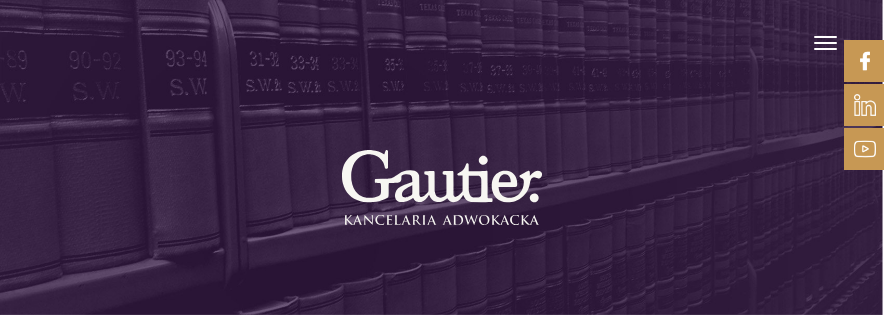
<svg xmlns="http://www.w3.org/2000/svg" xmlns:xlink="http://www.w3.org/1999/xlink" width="884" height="315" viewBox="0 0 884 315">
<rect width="100%" height="100%" fill="#ffffff"/>
<image xlink:href="image0.png" x="0" y="0" width="884" height="315"/>
<image xlink:href="image1.png" x="342" y="150" width="200" height="75"/>
<rect fill="#ffffff" x="814" y="36" width="23" height="2" rx="1"/>
<rect fill="#ffffff" x="814" y="42" width="23" height="2" rx="1"/>
<rect fill="#ffffff" x="814" y="48" width="23" height="2" rx="1"/>
<rect fill="#c79854" x="844" y="40" width="40" height="42"/>
<image xlink:href="image2.png" x="860" y="51" width="10" height="20"/>
<rect fill="#c79854" x="844" y="84" width="40" height="42"/>
<image xlink:href="image3.png" x="854" y="94" width="22" height="22"/>
<rect fill="#c79854" x="844" y="128" width="40" height="42"/>
<image xlink:href="image4.png" x="854" y="140" width="22" height="18"/>
</svg>
